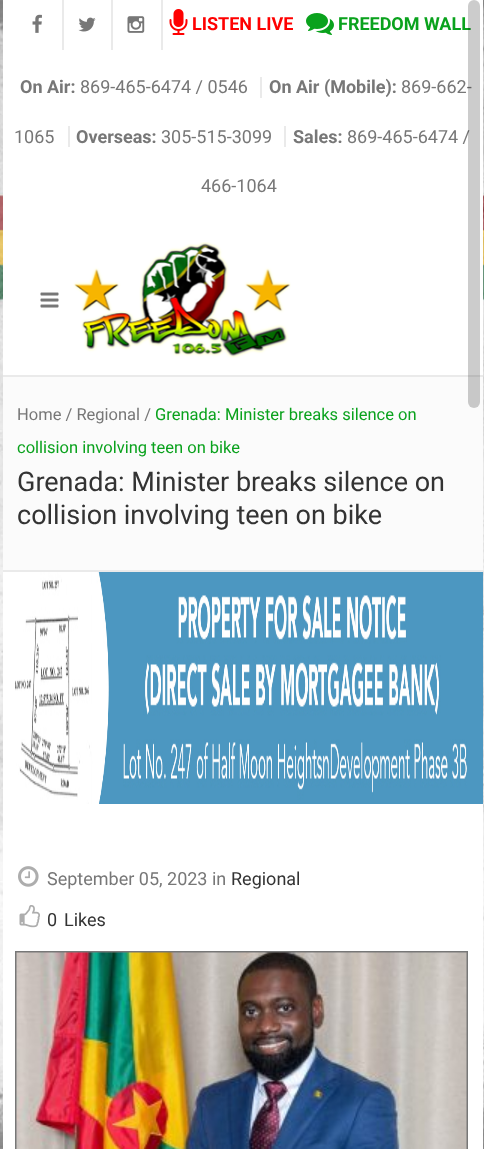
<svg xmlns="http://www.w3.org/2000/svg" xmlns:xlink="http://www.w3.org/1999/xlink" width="484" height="1149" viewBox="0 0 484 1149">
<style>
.cls-1{font:bold 18px Roboto;fill:#ff0000}
.cls-2{font:bold 18px Roboto;fill:#0aa21d}
.cls-3{font:bold 18px Roboto;fill:#777777}
.cls-4{font:18px Roboto;fill:#777777}
.cls-5{font:16.5px Roboto;fill:#777777}
.cls-6{font:16.5px Roboto;fill:#0aa21d}
.cls-7{font:27px Roboto;fill:#333333}
.cls-8{font:18px Roboto;fill:#333333}
</style>
<rect width="100%" height="100%" fill="#ffffff"/>
<image xlink:href="image0.png" x="0" y="0" width="484" height="1149"/>
<rect fill="#ffffff" x="3" y="0" width="480" height="375"/>
<rect fill="#eaeaea" x="62" y="0" width="2" height="50"/>
<image xlink:href="image1.png" x="32" y="14" width="10" height="19"/>
<rect fill="#eaeaea" x="111" y="0" width="2" height="50"/>
<image xlink:href="image2.png" x="78" y="17" width="18" height="15"/>
<rect fill="#eaeaea" x="161" y="0" width="2" height="50"/>
<image xlink:href="image3.png" x="127" y="16" width="18" height="17"/>
<image xlink:href="image4.png" x="169" y="9" width="19" height="26"/>
<image xlink:href="image5.png" x="306" y="13" width="28" height="22"/>
<rect fill="#eaeaea" x="260" y="77" width="2" height="21"/>
<rect fill="#eaeaea" x="68" y="126" width="2" height="21"/>
<rect fill="#eaeaea" x="284" y="126" width="2" height="21"/>
<rect fill="#eaeaea" x="3" y="375" width="480" height="2"/>
<image xlink:href="image6.png" x="40" y="292" width="19" height="16"/>
<image xlink:href="image7.png" x="73" y="242" width="218" height="116"/>
<rect fill="#ffffff" x="3" y="572" width="480" height="577"/>
<rect fill="#fbfbfb" x="3" y="377" width="480" height="193"/>
<rect fill="#eaeaea" x="3" y="570" width="480" height="2"/>
<image xlink:href="image8.png" x="15" y="572" width="468" height="232"/>
<image xlink:href="image9.png" x="18" y="866" width="21" height="21"/>
<image xlink:href="image10.png" x="19" y="905" width="21" height="23"/>
<rect fill="none" stroke="#777777" stroke-width="2" x="16" y="952" width="451" height="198"/>
<image xlink:href="image11.png" x="16" y="952" width="451" height="197"/>
<text class="cls-1" x="192" y="30">LISTEN LIVE</text>
<text class="cls-2" x="338" y="30">FREEDOM WALL</text>
<text class="cls-3" x="20" y="93">On Air:</text>
<text class="cls-4" x="80" y="93">869-465-6474 / 0546</text>
<text class="cls-3" x="269" y="93">On Air (Mobile):</text>
<text class="cls-4" x="401" y="93">869-662-</text>
<text class="cls-4" x="14" y="143">1065</text>
<text class="cls-3" x="76" y="143">Overseas:</text>
<text class="cls-4" x="161" y="143">305-515-3099</text>
<text class="cls-3" x="293" y="143">Sales:</text>
<text class="cls-4" x="347" y="143">869-465-6474 /</text>
<text class="cls-4" x="201" y="192">466-1064</text>
<text class="cls-5" x="17" y="420">Home / Regional /</text>
<text class="cls-6" x="155" y="420">Grenada: Minister breaks silence on</text>
<text class="cls-6" x="17" y="453">collision involving teen on bike</text>
<text class="cls-7"><tspan x="17" y="491">Grenada: Minister breaks silence on</tspan><tspan x="17" y="524">collision involving teen on bike</tspan></text>
<text class="cls-4" x="47" y="885">September 05, 2023 in</text>
<text class="cls-8" x="231" y="885">Regional</text>
<text class="cls-8" x="47" y="926">0</text>
<text class="cls-8" x="64" y="926">Likes</text>
<rect fill="#000000" fill-opacity="0.2" x="468" y="0" width="12" height="408" rx="6"/>
</svg>
